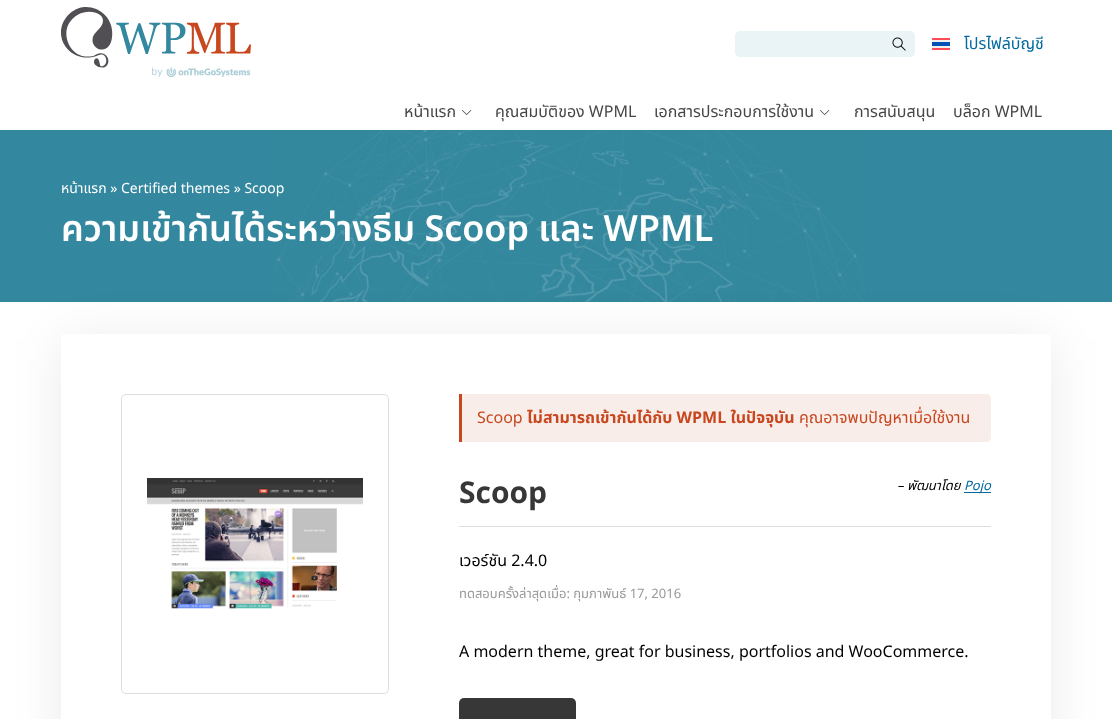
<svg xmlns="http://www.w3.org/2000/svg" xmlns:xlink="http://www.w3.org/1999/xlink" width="1112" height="719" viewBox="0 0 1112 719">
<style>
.cls-1{font:16px Noto Sans Thai;fill:#0369a1}
.cls-2{font:16px Noto Sans Thai;fill:#464646}
.cls-3{font:14px Noto Sans Thai;fill:#ffffff}
.cls-4{font:600 36px Noto Sans Thai;fill:#ffffff}
.cls-5{font:16px Noto Sans Thai;fill:#c8471f}
.cls-6{font:bold 16px Noto Sans Thai;fill:#c8471f}
.cls-7{font:bold 30px Noto Sans Thai;fill:#373737}
.cls-8{font:italic 13px Noto Sans Thai;fill:#000000}
.cls-9{font:italic 13px Noto Sans Thai;fill:#0369a1}
.cls-10{font:16px Noto Sans Thai;fill:#000000}
.cls-11{font:13px Noto Sans Thai;fill:#999999}
</style>
<defs>
<clipPath id="clip1"><path d="M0 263H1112V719H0ZM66 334H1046C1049 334 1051 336 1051 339V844C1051 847 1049 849 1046 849H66C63 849 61 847 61 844V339C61 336 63 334 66 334Z" clip-rule="evenodd"/></clipPath>
</defs>
<rect width="100%" height="100%" fill="#ffffff"/>
<image xlink:href="image0.png" x="61" y="7" width="190" height="70"/>
<path fill="#eaf3f5" d="M740 31H885V57H740C737 57 735 55 735 52V36C735 33 737 31 740 31Z"/>
<path fill="#eaf3f5" d="M883 31H910C913 31 915 33 915 36V52C915 55 913 57 910 57H883Z"/>
<image xlink:href="image1.png" x="892" y="37" width="14" height="14"/>
<rect fill="#ff4b55" x="932" y="38" width="18" height="12"/>
<rect fill="#f0f0f0" x="932" y="40" width="18" height="8"/>
<rect fill="#0052b4" x="932" y="42" width="18" height="4"/>
<image xlink:href="image2.png" x="462" y="110" width="10" height="5"/>
<image xlink:href="image2.png" x="820" y="110" width="10" height="5"/>
<rect fill="#33879e" x="0" y="130" width="1112" height="172"/>
<image xlink:href="image3.png" x="273" y="130" width="592" height="172"/>
<g clip-path="url(#clip1)">
<rect fill="#000000" fill-opacity="0.08" filter="blur(25px)" x="61" y="339" width="990" height="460" rx="5"/>
</g>
<rect fill="none" stroke="#dddddd" x="121.5" y="394.5" width="267" height="299" rx="4.5"/>
<image xlink:href="image4.png" x="147" y="478" width="216" height="131"/>
<path fill="#f9ede9" d="M459 394H986C989 394 991 396 991 399V437C991 440 989 442 986 442H459Z"/>
<rect fill="#c8471f" x="459" y="394" width="3" height="48"/>
<rect fill="#0369a1" x="964" y="492" width="27" height="1"/>
<rect fill="#dddddd" x="459" y="526" width="532" height="1"/>
<rect fill="#373737" x="459" y="698" width="117" height="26" rx="5"/>
<text class="cls-1" x="964" y="49">โปรไฟล์บัญชี</text>
<text class="cls-2" x="404" y="117">หน้าแรก</text>
<text class="cls-2" x="495" y="117">คุณสมบัติของ WPML</text>
<text class="cls-2" x="654" y="117">เอกสารประกอบการใช้งาน</text>
<text class="cls-2" x="854" y="117">การสนับสนุน</text>
<text class="cls-2" x="953" y="117">บล็อก WPML</text>
<text class="cls-3" x="61" y="193">หน้าแรก » Certified themes » Scoop</text>
<text class="cls-4" x="61" y="241">ความเข้ากันได้ระหว่างธีม Scoop และ WPML</text>
<text class="cls-5" x="477" y="423">Scoop</text>
<text class="cls-6" x="527" y="423">ไม่สามารถเข้ากันได้กับ WPML ในปัจจุบัน</text>
<text class="cls-5" x="799" y="423">คุณอาจพบปัญหาเมื่อใช้งาน</text>
<text class="cls-7" x="459" y="503">Scoop</text>
<text class="cls-8" x="897" y="490">– พัฒนาโดย</text>
<text class="cls-9" x="964" y="490">Pojo</text>
<text class="cls-10" x="459" y="566">เวอร์ชัน 2.4.0</text>
<text class="cls-11" x="459" y="598">ทดสอบครั้งล่าสุดเมื่อ: กุมภาพันธ์ 17, 2016</text>
<text class="cls-10" x="459" y="657">A modern theme, great for business, portfolios and WooCommerce.</text>
</svg>
